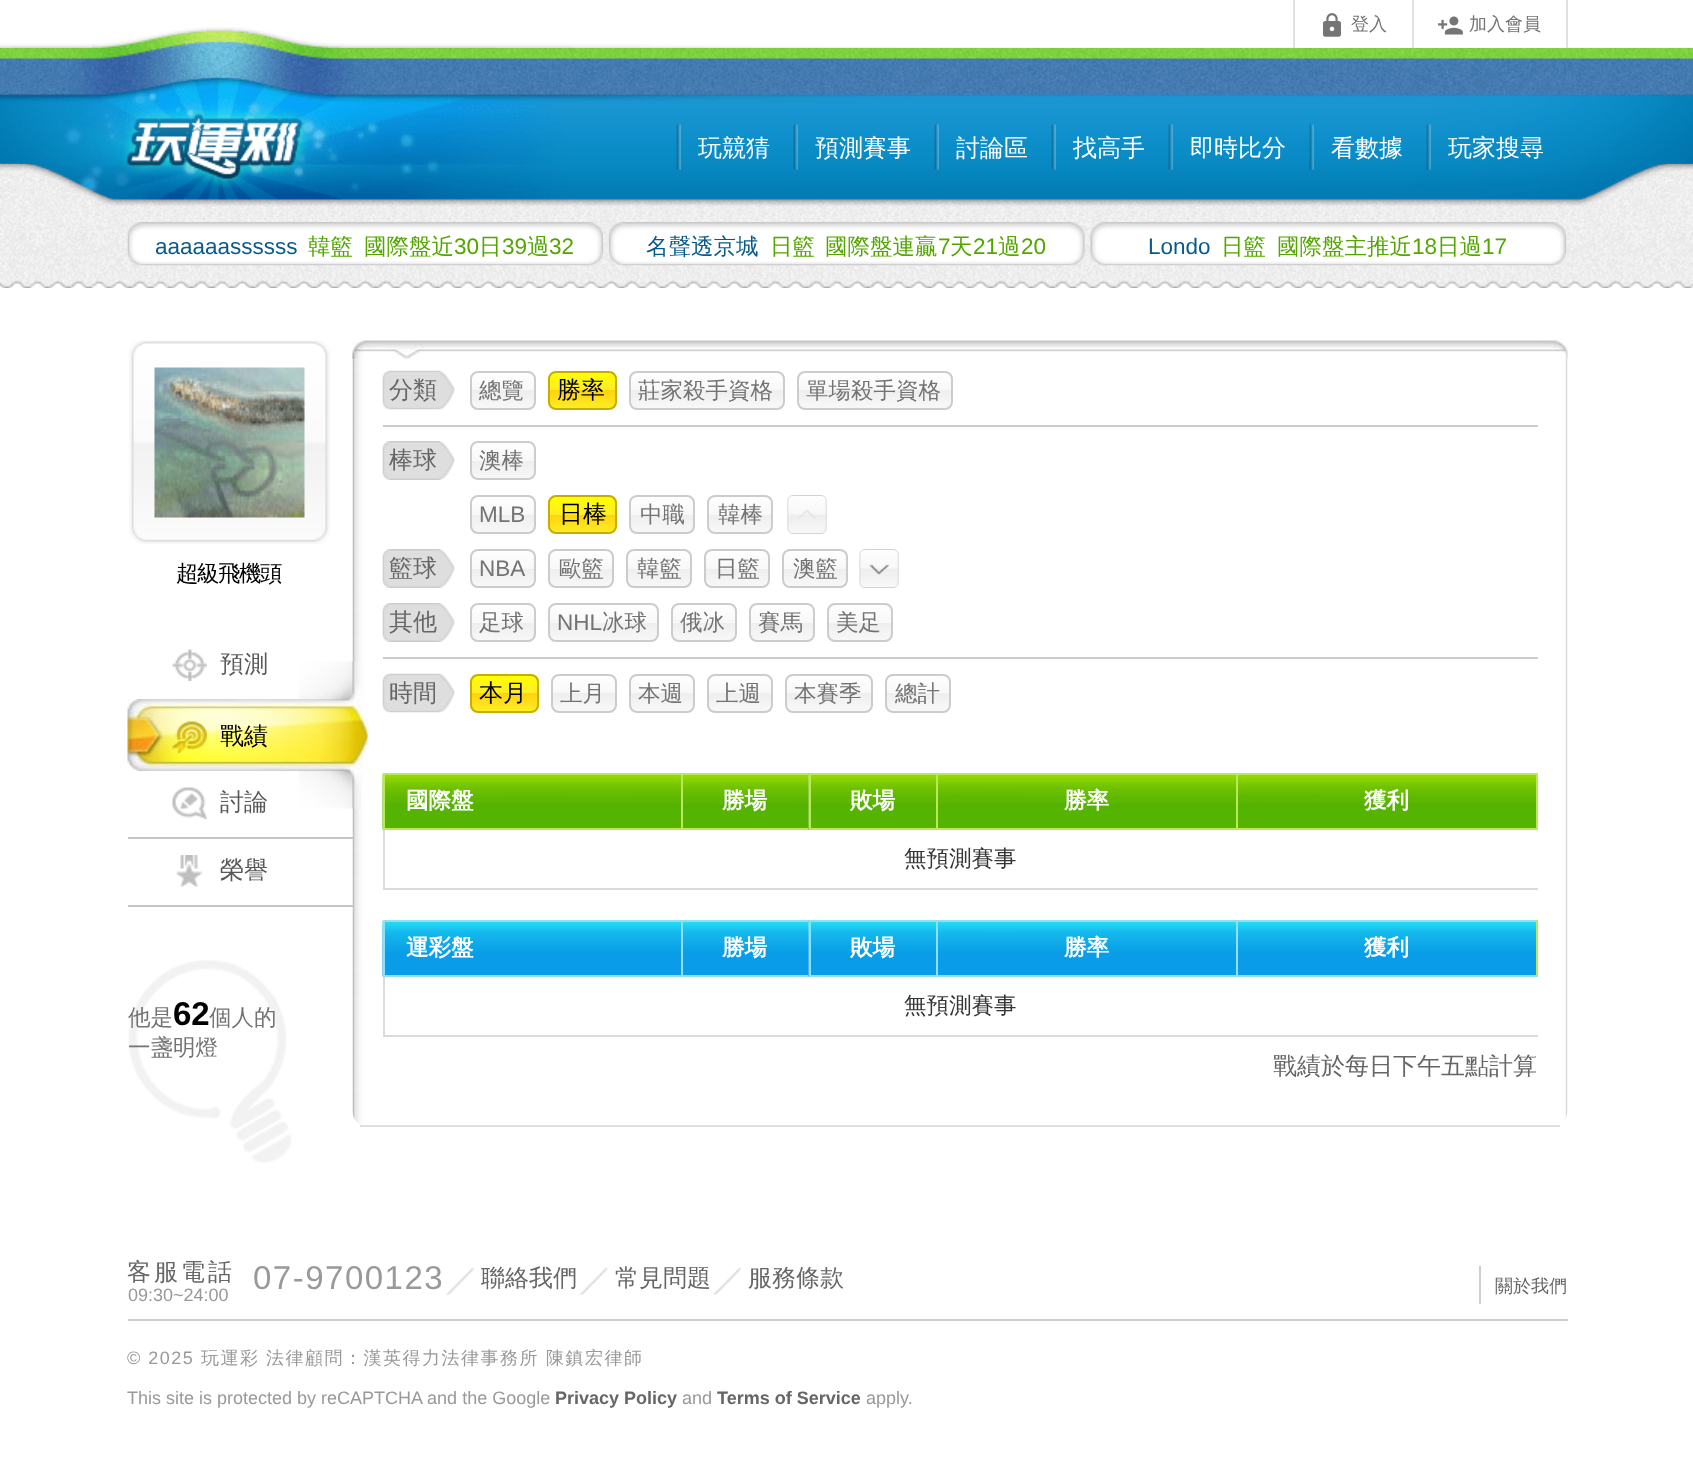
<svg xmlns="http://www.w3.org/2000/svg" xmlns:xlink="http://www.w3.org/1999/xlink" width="1693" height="1459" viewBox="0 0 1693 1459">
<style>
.cls-1{font:500 18px WenQuanYi Zen Hei;fill:#737373}
.cls-2{font:500 24px WenQuanYi Zen Hei;fill:#ffffff}
.cls-3{font:22.5px Liberation Sans;fill:#095a8b}
.cls-4{font:500 22.5px WenQuanYi Zen Hei;fill:#53a600}
.cls-5{font:22.5px Liberation Sans;fill:#53a600}
.cls-6{font:500 22.5px WenQuanYi Zen Hei;fill:#095a8b}
.cls-7{font:500 22.5px WenQuanYi Zen Hei;letter-spacing:-1.5px;fill:#000000}
.cls-8{font:500 24px WenQuanYi Zen Hei;fill:#585858}
.cls-9{font:500 24px WenQuanYi Zen Hei;fill:#000000}
.cls-10{font:500 22.5px WenQuanYi Zen Hei;fill:#737373}
.cls-11{font:bold 33px Liberation Sans;fill:#000000}
.cls-12{font:500 24px WenQuanYi Zen Hei;fill:#666666}
.cls-13{font:22.5px Liberation Sans;fill:#737373}
.cls-14{font:bold 22.5px WenQuanYi Zen Hei;fill:#ffffff}
.cls-15{font:500 22.5px WenQuanYi Zen Hei;fill:#353535}
.cls-16{font:500 24px WenQuanYi Zen Hei;letter-spacing:3px;fill:#666666}
.cls-17{font:33px Liberation Sans;letter-spacing:1.5px;fill:#999999}
.cls-18{font:18px Liberation Sans;fill:#999999}
.cls-19{font:500 18px WenQuanYi Zen Hei;fill:#666666}
.cls-20{font:18px Liberation Sans;letter-spacing:1.5px;fill:#999999}
.cls-21{font:500 18px WenQuanYi Zen Hei;letter-spacing:1.5px;fill:#999999}
.cls-22{font:bold 18px Liberation Sans;fill:#666666}
</style>
<defs>
<clipPath id="clip1"><rect x="470" y="371" width="66" height="39" rx="8"/></clipPath>
<linearGradient id="g1" gradientUnits="userSpaceOnUse" x1="503" y1="408" x2="503" y2="372"><stop offset="0" stop-color="#f8f8f8"/><stop offset="0.51" stop-color="#eeeeee"/><stop offset="0.51" stop-color="#f8f8f8"/><stop offset="0.99" stop-color="#fefefe"/></linearGradient>
<clipPath id="clip2"><rect x="548" y="371" width="69" height="39" rx="8"/></clipPath>
<linearGradient id="g2" gradientUnits="userSpaceOnUse" x1="582" y1="408" x2="582" y2="372"><stop offset="0" stop-color="#ffed26"/><stop offset="0.51" stop-color="#ffd20c"/><stop offset="0.51" stop-color="#ffed26"/><stop offset="0.99" stop-color="#ffff00"/></linearGradient>
<clipPath id="clip3"><rect x="629" y="371" width="156" height="39" rx="8"/></clipPath>
<linearGradient id="g3" gradientUnits="userSpaceOnUse" x1="707" y1="408" x2="707" y2="372"><stop offset="0" stop-color="#f8f8f8"/><stop offset="0.51" stop-color="#eeeeee"/><stop offset="0.51" stop-color="#f8f8f8"/><stop offset="0.99" stop-color="#fefefe"/></linearGradient>
<clipPath id="clip4"><rect x="797" y="371" width="156" height="39" rx="8"/></clipPath>
<linearGradient id="g4" gradientUnits="userSpaceOnUse" x1="875" y1="408" x2="875" y2="372"><stop offset="0" stop-color="#f8f8f8"/><stop offset="0.51" stop-color="#eeeeee"/><stop offset="0.51" stop-color="#f8f8f8"/><stop offset="0.99" stop-color="#fefefe"/></linearGradient>
<clipPath id="clip5"><rect x="470" y="441" width="66" height="39" rx="8"/></clipPath>
<linearGradient id="g5" gradientUnits="userSpaceOnUse" x1="503" y1="479" x2="503" y2="443"><stop offset="0" stop-color="#f8f8f8"/><stop offset="0.51" stop-color="#eeeeee"/><stop offset="0.51" stop-color="#f8f8f8"/><stop offset="0.99" stop-color="#fefefe"/></linearGradient>
<clipPath id="clip6"><rect x="470" y="495" width="66" height="39" rx="8"/></clipPath>
<linearGradient id="g6" gradientUnits="userSpaceOnUse" x1="503" y1="533" x2="503" y2="497"><stop offset="0" stop-color="#f8f8f8"/><stop offset="0.51" stop-color="#eeeeee"/><stop offset="0.51" stop-color="#f8f8f8"/><stop offset="0.99" stop-color="#fefefe"/></linearGradient>
<clipPath id="clip7"><rect x="548" y="495" width="69" height="39" rx="8"/></clipPath>
<linearGradient id="g7" gradientUnits="userSpaceOnUse" x1="582" y1="533" x2="582" y2="497"><stop offset="0" stop-color="#ffed26"/><stop offset="0.51" stop-color="#ffd20c"/><stop offset="0.51" stop-color="#ffed26"/><stop offset="0.99" stop-color="#ffff00"/></linearGradient>
<clipPath id="clip8"><rect x="629" y="495" width="66" height="39" rx="8"/></clipPath>
<linearGradient id="g8" gradientUnits="userSpaceOnUse" x1="662" y1="533" x2="662" y2="497"><stop offset="0" stop-color="#f8f8f8"/><stop offset="0.51" stop-color="#eeeeee"/><stop offset="0.51" stop-color="#f8f8f8"/><stop offset="0.99" stop-color="#fefefe"/></linearGradient>
<clipPath id="clip9"><rect x="707" y="495" width="66" height="39" rx="8"/></clipPath>
<linearGradient id="g9" gradientUnits="userSpaceOnUse" x1="740" y1="533" x2="740" y2="497"><stop offset="0" stop-color="#f8f8f8"/><stop offset="0.51" stop-color="#eeeeee"/><stop offset="0.51" stop-color="#f8f8f8"/><stop offset="0.99" stop-color="#fefefe"/></linearGradient>
<clipPath id="clip10"><rect x="470" y="549" width="66" height="39" rx="8"/></clipPath>
<linearGradient id="g10" gradientUnits="userSpaceOnUse" x1="503" y1="587" x2="503" y2="551"><stop offset="0" stop-color="#f8f8f8"/><stop offset="0.51" stop-color="#eeeeee"/><stop offset="0.51" stop-color="#f8f8f8"/><stop offset="0.99" stop-color="#fefefe"/></linearGradient>
<clipPath id="clip11"><rect x="548" y="549" width="66" height="39" rx="8"/></clipPath>
<linearGradient id="g11" gradientUnits="userSpaceOnUse" x1="581" y1="587" x2="581" y2="551"><stop offset="0" stop-color="#f8f8f8"/><stop offset="0.51" stop-color="#eeeeee"/><stop offset="0.51" stop-color="#f8f8f8"/><stop offset="0.99" stop-color="#fefefe"/></linearGradient>
<clipPath id="clip12"><rect x="626" y="549" width="66" height="39" rx="8"/></clipPath>
<linearGradient id="g12" gradientUnits="userSpaceOnUse" x1="659" y1="587" x2="659" y2="551"><stop offset="0" stop-color="#f8f8f8"/><stop offset="0.51" stop-color="#eeeeee"/><stop offset="0.51" stop-color="#f8f8f8"/><stop offset="0.99" stop-color="#fefefe"/></linearGradient>
<clipPath id="clip13"><rect x="704" y="549" width="66" height="39" rx="8"/></clipPath>
<linearGradient id="g13" gradientUnits="userSpaceOnUse" x1="737" y1="587" x2="737" y2="551"><stop offset="0" stop-color="#f8f8f8"/><stop offset="0.51" stop-color="#eeeeee"/><stop offset="0.51" stop-color="#f8f8f8"/><stop offset="0.99" stop-color="#fefefe"/></linearGradient>
<clipPath id="clip14"><rect x="782" y="549" width="66" height="39" rx="8"/></clipPath>
<linearGradient id="g14" gradientUnits="userSpaceOnUse" x1="815" y1="587" x2="815" y2="551"><stop offset="0" stop-color="#f8f8f8"/><stop offset="0.51" stop-color="#eeeeee"/><stop offset="0.51" stop-color="#f8f8f8"/><stop offset="0.99" stop-color="#fefefe"/></linearGradient>
<clipPath id="clip15"><rect x="470" y="603" width="66" height="39" rx="8"/></clipPath>
<linearGradient id="g15" gradientUnits="userSpaceOnUse" x1="503" y1="641" x2="503" y2="605"><stop offset="0" stop-color="#f8f8f8"/><stop offset="0.51" stop-color="#eeeeee"/><stop offset="0.51" stop-color="#f8f8f8"/><stop offset="0.99" stop-color="#fefefe"/></linearGradient>
<clipPath id="clip16"><rect x="548" y="603" width="111" height="39" rx="8"/></clipPath>
<linearGradient id="g16" gradientUnits="userSpaceOnUse" x1="603" y1="641" x2="603" y2="605"><stop offset="0" stop-color="#f8f8f8"/><stop offset="0.51" stop-color="#eeeeee"/><stop offset="0.51" stop-color="#f8f8f8"/><stop offset="0.99" stop-color="#fefefe"/></linearGradient>
<clipPath id="clip17"><rect x="671" y="603" width="66" height="39" rx="8"/></clipPath>
<linearGradient id="g17" gradientUnits="userSpaceOnUse" x1="704" y1="641" x2="704" y2="605"><stop offset="0" stop-color="#f8f8f8"/><stop offset="0.51" stop-color="#eeeeee"/><stop offset="0.51" stop-color="#f8f8f8"/><stop offset="0.99" stop-color="#fefefe"/></linearGradient>
<clipPath id="clip18"><rect x="749" y="603" width="66" height="39" rx="8"/></clipPath>
<linearGradient id="g18" gradientUnits="userSpaceOnUse" x1="782" y1="641" x2="782" y2="605"><stop offset="0" stop-color="#f8f8f8"/><stop offset="0.51" stop-color="#eeeeee"/><stop offset="0.51" stop-color="#f8f8f8"/><stop offset="0.99" stop-color="#fefefe"/></linearGradient>
<clipPath id="clip19"><rect x="827" y="603" width="66" height="39" rx="8"/></clipPath>
<linearGradient id="g19" gradientUnits="userSpaceOnUse" x1="860" y1="641" x2="860" y2="605"><stop offset="0" stop-color="#f8f8f8"/><stop offset="0.51" stop-color="#eeeeee"/><stop offset="0.51" stop-color="#f8f8f8"/><stop offset="0.99" stop-color="#fefefe"/></linearGradient>
<clipPath id="clip20"><rect x="470" y="674" width="69" height="39" rx="8"/></clipPath>
<linearGradient id="g20" gradientUnits="userSpaceOnUse" x1="504" y1="711" x2="504" y2="675"><stop offset="0" stop-color="#ffed26"/><stop offset="0.51" stop-color="#ffd20c"/><stop offset="0.51" stop-color="#ffed26"/><stop offset="0.99" stop-color="#ffff00"/></linearGradient>
<clipPath id="clip21"><rect x="551" y="674" width="66" height="39" rx="8"/></clipPath>
<linearGradient id="g21" gradientUnits="userSpaceOnUse" x1="584" y1="711" x2="584" y2="675"><stop offset="0" stop-color="#f8f8f8"/><stop offset="0.51" stop-color="#eeeeee"/><stop offset="0.51" stop-color="#f8f8f8"/><stop offset="0.99" stop-color="#fefefe"/></linearGradient>
<clipPath id="clip22"><rect x="629" y="674" width="66" height="39" rx="8"/></clipPath>
<linearGradient id="g22" gradientUnits="userSpaceOnUse" x1="662" y1="711" x2="662" y2="675"><stop offset="0" stop-color="#f8f8f8"/><stop offset="0.51" stop-color="#eeeeee"/><stop offset="0.51" stop-color="#f8f8f8"/><stop offset="0.99" stop-color="#fefefe"/></linearGradient>
<clipPath id="clip23"><rect x="707" y="674" width="66" height="39" rx="8"/></clipPath>
<linearGradient id="g23" gradientUnits="userSpaceOnUse" x1="740" y1="711" x2="740" y2="675"><stop offset="0" stop-color="#f8f8f8"/><stop offset="0.51" stop-color="#eeeeee"/><stop offset="0.51" stop-color="#f8f8f8"/><stop offset="0.99" stop-color="#fefefe"/></linearGradient>
<clipPath id="clip24"><rect x="785" y="674" width="88" height="39" rx="8"/></clipPath>
<linearGradient id="g24" gradientUnits="userSpaceOnUse" x1="829" y1="711" x2="829" y2="675"><stop offset="0" stop-color="#f8f8f8"/><stop offset="0.51" stop-color="#eeeeee"/><stop offset="0.51" stop-color="#f8f8f8"/><stop offset="0.99" stop-color="#fefefe"/></linearGradient>
<clipPath id="clip25"><rect x="885" y="674" width="66" height="39" rx="8"/></clipPath>
<linearGradient id="g25" gradientUnits="userSpaceOnUse" x1="918" y1="711" x2="918" y2="675"><stop offset="0" stop-color="#f8f8f8"/><stop offset="0.51" stop-color="#eeeeee"/><stop offset="0.51" stop-color="#f8f8f8"/><stop offset="0.99" stop-color="#fefefe"/></linearGradient>
</defs>
<rect width="100%" height="100%" fill="#ffffff"/>
<image xlink:href="image0.png" x="0" y="48" width="1693" height="240"/>
<image xlink:href="image1.png" x="0" y="27" width="1693" height="179"/>
<rect fill="#ffffff" x="1295" y="47" width="271" height="1"/>
<rect fill="#e0e0e0" x="1566" y="0" width="2" height="48"/>
<rect fill="#e0e0e0" x="1293" y="0" width="2" height="48"/>
<image xlink:href="image2.png" x="1323" y="13" width="18" height="24"/>
<rect fill="#e0e0e0" x="1412" y="0" width="2" height="48"/>
<image xlink:href="image3.png" x="1438" y="16" width="25" height="19"/>
<image xlink:href="image4.png" x="122" y="110" width="186" height="78"/>
<image xlink:href="image5.png" x="676" y="124" width="5" height="46"/>
<image xlink:href="image5.png" x="793" y="124" width="5" height="46"/>
<image xlink:href="image5.png" x="934" y="124" width="5" height="46"/>
<image xlink:href="image5.png" x="1051" y="124" width="5" height="46"/>
<image xlink:href="image5.png" x="1168" y="124" width="5" height="46"/>
<image xlink:href="image5.png" x="1309" y="124" width="5" height="46"/>
<image xlink:href="image6.png" x="1426" y="124" width="5" height="46"/>
<image xlink:href="image7.png" x="127" y="222" width="476" height="44"/>
<image xlink:href="image8.png" x="609" y="222" width="476" height="44"/>
<image xlink:href="image9.png" x="1090" y="222" width="476" height="44"/>
<image xlink:href="image10.png" x="129" y="340" width="201" height="204"/>
<image xlink:href="image11.png" x="154" y="367" width="151" height="151"/>
<image xlink:href="image12.png" x="172" y="649" width="35" height="32"/>
<image xlink:href="image13.png" x="127" y="699" width="224" height="72"/>
<image xlink:href="image21.png" x="352" y="352" width="1216" height="772"/>
<image xlink:href="image14.png" x="299" y="661" width="62" height="38"/>
<image xlink:href="image15.png" x="172" y="721" width="35" height="32"/>
<image xlink:href="image16.png" x="351" y="699" width="17" height="72"/>
<image xlink:href="image17.png" x="299" y="771" width="62" height="38"/>
<rect fill="#c6c6c6" x="128" y="837" width="225" height="2"/>
<image xlink:href="image18.png" x="172" y="787" width="35" height="32"/>
<rect fill="#c6c6c6" x="128" y="905" width="225" height="2"/>
<image xlink:href="image19.png" x="175" y="855" width="28" height="32"/>
<image xlink:href="image20.png" x="128" y="960" width="164" height="203"/>
<rect fill="#e0e0e0" x="360" y="1125" width="1200" height="2"/>
<image xlink:href="image22.png" x="352" y="340" width="1216" height="19"/>
<rect fill="#cbcbcb" x="383" y="425" width="1155" height="2"/>
<image xlink:href="image23.png" x="382" y="370" width="8" height="40"/>
<image xlink:href="image24.png" x="390" y="370" width="48" height="40"/>
<image xlink:href="image25.png" x="438" y="370" width="17" height="40"/>
<g clip-path="url(#clip1)">
<rect fill="url(#g1)" x="470" y="372" width="66" height="36"/>
</g>
<rect fill="none" stroke="#cccccc" stroke-width="2" x="471" y="372" width="64" height="37" rx="7"/>
<g clip-path="url(#clip2)">
<rect fill="url(#g2)" x="548" y="372" width="69" height="36"/>
</g>
<rect fill="none" stroke="#c7ad00" stroke-width="2" x="549" y="372" width="67" height="37" rx="7"/>
<g clip-path="url(#clip3)">
<rect fill="url(#g3)" x="629" y="372" width="156" height="36"/>
</g>
<rect fill="none" stroke="#cccccc" stroke-width="2" x="630" y="372" width="154" height="37" rx="7"/>
<g clip-path="url(#clip4)">
<rect fill="url(#g4)" x="797" y="372" width="156" height="36"/>
</g>
<rect fill="none" stroke="#cccccc" stroke-width="2" x="798" y="372" width="154" height="37" rx="7"/>
<image xlink:href="image26.png" x="382" y="441" width="8" height="39"/>
<image xlink:href="image27.png" x="390" y="441" width="48" height="39"/>
<image xlink:href="image28.png" x="438" y="441" width="17" height="39"/>
<g clip-path="url(#clip5)">
<rect fill="url(#g5)" x="470" y="443" width="66" height="36"/>
</g>
<rect fill="none" stroke="#cccccc" stroke-width="2" x="471" y="442" width="64" height="37" rx="7"/>
<g clip-path="url(#clip6)">
<rect fill="url(#g6)" x="470" y="497" width="66" height="36"/>
</g>
<rect fill="none" stroke="#cccccc" stroke-width="2" x="471" y="496" width="64" height="37" rx="7"/>
<g clip-path="url(#clip7)">
<rect fill="url(#g7)" x="548" y="497" width="69" height="36"/>
</g>
<rect fill="none" stroke="#c7ad00" stroke-width="2" x="549" y="496" width="67" height="37" rx="7"/>
<g clip-path="url(#clip8)">
<rect fill="url(#g8)" x="629" y="497" width="66" height="36"/>
</g>
<rect fill="none" stroke="#cccccc" stroke-width="2" x="630" y="496" width="64" height="37" rx="7"/>
<g clip-path="url(#clip9)">
<rect fill="url(#g9)" x="707" y="497" width="66" height="36"/>
</g>
<rect fill="none" stroke="#cccccc" stroke-width="2" x="708" y="496" width="64" height="37" rx="7"/>
<image xlink:href="image29.png" x="787" y="495" width="40" height="39"/>
<image xlink:href="image26.png" x="382" y="549" width="8" height="39"/>
<image xlink:href="image27.png" x="390" y="549" width="48" height="39"/>
<image xlink:href="image28.png" x="438" y="549" width="17" height="39"/>
<g clip-path="url(#clip10)">
<rect fill="url(#g10)" x="470" y="551" width="66" height="36"/>
</g>
<rect fill="none" stroke="#cccccc" stroke-width="2" x="471" y="550" width="64" height="37" rx="7"/>
<g clip-path="url(#clip11)">
<rect fill="url(#g11)" x="548" y="551" width="66" height="36"/>
</g>
<rect fill="none" stroke="#cccccc" stroke-width="2" x="549" y="550" width="64" height="37" rx="7"/>
<g clip-path="url(#clip12)">
<rect fill="url(#g12)" x="626" y="551" width="66" height="36"/>
</g>
<rect fill="none" stroke="#cccccc" stroke-width="2" x="627" y="550" width="64" height="37" rx="7"/>
<g clip-path="url(#clip13)">
<rect fill="url(#g13)" x="704" y="551" width="66" height="36"/>
</g>
<rect fill="none" stroke="#cccccc" stroke-width="2" x="705" y="550" width="64" height="37" rx="7"/>
<g clip-path="url(#clip14)">
<rect fill="url(#g14)" x="782" y="551" width="66" height="36"/>
</g>
<rect fill="none" stroke="#cccccc" stroke-width="2" x="783" y="550" width="64" height="37" rx="7"/>
<image xlink:href="image30.png" x="859" y="549" width="40" height="39"/>
<image xlink:href="image26.png" x="382" y="603" width="8" height="39"/>
<image xlink:href="image27.png" x="390" y="603" width="48" height="39"/>
<image xlink:href="image28.png" x="438" y="603" width="17" height="39"/>
<g clip-path="url(#clip15)">
<rect fill="url(#g15)" x="470" y="605" width="66" height="36"/>
</g>
<rect fill="none" stroke="#cccccc" stroke-width="2" x="471" y="604" width="64" height="37" rx="7"/>
<g clip-path="url(#clip16)">
<rect fill="url(#g16)" x="548" y="605" width="111" height="36"/>
</g>
<rect fill="none" stroke="#cccccc" stroke-width="2" x="549" y="604" width="109" height="37" rx="7"/>
<g clip-path="url(#clip17)">
<rect fill="url(#g17)" x="671" y="605" width="66" height="36"/>
</g>
<rect fill="none" stroke="#cccccc" stroke-width="2" x="672" y="604" width="64" height="37" rx="7"/>
<g clip-path="url(#clip18)">
<rect fill="url(#g18)" x="749" y="605" width="66" height="36"/>
</g>
<rect fill="none" stroke="#cccccc" stroke-width="2" x="750" y="604" width="64" height="37" rx="7"/>
<g clip-path="url(#clip19)">
<rect fill="url(#g19)" x="827" y="605" width="66" height="36"/>
</g>
<rect fill="none" stroke="#cccccc" stroke-width="2" x="828" y="604" width="64" height="37" rx="7"/>
<rect fill="#cbcbcb" x="383" y="657" width="1155" height="2"/>
<image xlink:href="image23.png" x="382" y="673" width="8" height="40"/>
<image xlink:href="image24.png" x="390" y="673" width="48" height="40"/>
<image xlink:href="image25.png" x="438" y="673" width="17" height="40"/>
<g clip-path="url(#clip20)">
<rect fill="url(#g20)" x="470" y="675" width="69" height="36"/>
</g>
<rect fill="none" stroke="#c7ad00" stroke-width="2" x="471" y="675" width="67" height="37" rx="7"/>
<g clip-path="url(#clip21)">
<rect fill="url(#g21)" x="551" y="675" width="66" height="36"/>
</g>
<rect fill="none" stroke="#cccccc" stroke-width="2" x="552" y="675" width="64" height="37" rx="7"/>
<g clip-path="url(#clip22)">
<rect fill="url(#g22)" x="629" y="675" width="66" height="36"/>
</g>
<rect fill="none" stroke="#cccccc" stroke-width="2" x="630" y="675" width="64" height="37" rx="7"/>
<g clip-path="url(#clip23)">
<rect fill="url(#g23)" x="707" y="675" width="66" height="36"/>
</g>
<rect fill="none" stroke="#cccccc" stroke-width="2" x="708" y="675" width="64" height="37" rx="7"/>
<g clip-path="url(#clip24)">
<rect fill="url(#g24)" x="785" y="675" width="88" height="36"/>
</g>
<rect fill="none" stroke="#cccccc" stroke-width="2" x="786" y="675" width="86" height="37" rx="7"/>
<g clip-path="url(#clip25)">
<rect fill="url(#g25)" x="885" y="675" width="66" height="36"/>
</g>
<rect fill="none" stroke="#cccccc" stroke-width="2" x="886" y="675" width="64" height="37" rx="7"/>
<image xlink:href="image31.png" x="382" y="774" width="299" height="56"/>
<rect fill="#b9e858" x="383" y="773" width="426" height="2"/>
<rect fill="#b9e858" x="383" y="828" width="426" height="2"/>
<rect fill="#b9e858" x="383" y="773" width="2" height="57"/>
<image xlink:href="image32.png" x="683" y="775" width="126" height="53"/>
<rect fill="#b9e858" x="681" y="773" width="2" height="57"/>
<image xlink:href="image33.png" x="808" y="774" width="128" height="56"/>
<rect fill="#b9e858" x="809" y="773" width="427" height="2"/>
<rect fill="#b9e858" x="809" y="828" width="427" height="2"/>
<rect fill="#b9e858" x="809" y="773" width="2" height="57"/>
<image xlink:href="image34.png" x="938" y="775" width="298" height="53"/>
<rect fill="#b9e858" x="936" y="773" width="2" height="57"/>
<image xlink:href="image35.png" x="1238" y="775" width="298" height="53"/>
<rect fill="none" stroke="#b9e858" stroke-width="2" x="1237" y="774" width="300" height="55"/>
<rect fill="#dbdbdb" x="383" y="888" width="1155" height="2"/>
<rect fill="#dbdbdb" x="383" y="830" width="2" height="60"/>
<image xlink:href="image36.png" x="382" y="921" width="299" height="56"/>
<rect fill="#91dff3" x="383" y="920" width="426" height="2"/>
<rect fill="#91dff3" x="383" y="975" width="426" height="2"/>
<rect fill="#91dff3" x="383" y="920" width="2" height="57"/>
<image xlink:href="image37.png" x="683" y="922" width="126" height="53"/>
<rect fill="#91dff3" x="681" y="920" width="2" height="57"/>
<image xlink:href="image38.png" x="808" y="921" width="128" height="56"/>
<rect fill="#91dff3" x="809" y="920" width="729" height="2"/>
<rect fill="#91dff3" x="809" y="975" width="427" height="2"/>
<rect fill="#91dff3" x="809" y="920" width="2" height="57"/>
<image xlink:href="image39.png" x="938" y="922" width="298" height="53"/>
<rect fill="#91dff3" x="936" y="920" width="2" height="57"/>
<image xlink:href="image40.png" x="1238" y="922" width="298" height="53"/>
<rect fill="#b9e858" x="1536" y="920" width="2" height="57"/>
<rect fill="#91dff3" x="1236" y="975" width="302" height="2"/>
<rect fill="#91dff3" x="1236" y="920" width="2" height="57"/>
<rect fill="#dbdbdb" x="383" y="1035" width="1155" height="2"/>
<rect fill="#dbdbdb" x="383" y="977" width="2" height="60"/>
<image xlink:href="image41.png" x="446" y="1267" width="28" height="28"/>
<image xlink:href="image42.png" x="579" y="1267" width="29" height="28"/>
<image xlink:href="image43.png" x="713" y="1267" width="28" height="28"/>
<rect fill="#cdcdcd" x="1479" y="1266" width="2" height="38"/>
<rect fill="#cdcdcd" x="128" y="1319" width="1440" height="2"/>
<text class="cls-1" x="1351" y="30">登入</text>
<text class="cls-1" x="1469" y="30">加入會員</text>
<text class="cls-2" x="698" y="156">玩競猜</text>
<text class="cls-2" x="815" y="156">預測賽事</text>
<text class="cls-2" x="956" y="156">討論區</text>
<text class="cls-2" x="1073" y="156">找高手</text>
<text class="cls-2" x="1190" y="156">即時比分</text>
<text class="cls-2" x="1331" y="156">看數據</text>
<text class="cls-2" x="1448" y="156">玩家搜尋</text>
<text class="cls-3" x="155" y="254">aaaaaassssss</text>
<text class="cls-4" x="308" y="254">韓籃</text>
<text class="cls-4" x="364" y="254">國際盤近</text>
<text class="cls-5" x="454" y="254">30</text>
<text class="cls-4" x="479" y="254">日</text>
<text class="cls-5" x="502" y="254">39</text>
<text class="cls-4" x="527" y="254">過</text>
<text class="cls-5" x="549" y="254">32</text>
<text class="cls-6" x="646" y="254">名聲透京城</text>
<text class="cls-4" x="770" y="254">日籃</text>
<text class="cls-4" x="825" y="254">國際盤連贏</text>
<text class="cls-5" x="938" y="254">7</text>
<text class="cls-4" x="950" y="254">天</text>
<text class="cls-5" x="973" y="254">21</text>
<text class="cls-4" x="998" y="254">過</text>
<text class="cls-5" x="1021" y="254">20</text>
<text class="cls-3" x="1148" y="254">Londo</text>
<text class="cls-4" x="1221" y="254">日籃</text>
<text class="cls-4" x="1277" y="254">國際盤主推近</text>
<text class="cls-5" x="1412" y="254">18</text>
<text class="cls-4" x="1437" y="254">日過</text>
<text class="cls-5" x="1482" y="254">17</text>
<text class="cls-7" x="176" y="581">超級飛機頭</text>
<text class="cls-8" x="220" y="672">預測</text>
<text class="cls-9" x="220" y="744">戰績</text>
<text class="cls-8" x="220" y="810">討論</text>
<text class="cls-8" x="220" y="878">榮譽</text>
<text class="cls-10" x="128" y="1025">他是</text>
<text class="cls-11" x="173" y="1025">62</text>
<text class="cls-10" x="209" y="1025">個人的</text>
<text class="cls-10" x="128" y="1055">一盞明燈</text>
<text class="cls-12" x="389" y="398">分類</text>
<text class="cls-10" x="479" y="398">總覽</text>
<text class="cls-9" x="557" y="398">勝率</text>
<text class="cls-10" x="638" y="398">莊家殺手資格</text>
<text class="cls-10" x="806" y="398">單場殺手資格</text>
<text class="cls-12" x="389" y="468">棒球</text>
<text class="cls-10" x="479" y="468">澳棒</text>
<text class="cls-13" x="479" y="522">MLB</text>
<text class="cls-9" x="559" y="522">日棒</text>
<text class="cls-10" x="640" y="522">中職</text>
<text class="cls-10" x="718" y="522">韓棒</text>
<text class="cls-12" x="389" y="576">籃球</text>
<text class="cls-13" x="479" y="576">NBA</text>
<text class="cls-10" x="559" y="576">歐籃</text>
<text class="cls-10" x="637" y="576">韓籃</text>
<text class="cls-10" x="715" y="576">日籃</text>
<text class="cls-10" x="793" y="576">澳籃</text>
<text class="cls-12" x="389" y="630">其他</text>
<text class="cls-10" x="479" y="630">足球</text>
<text class="cls-13" x="557" y="630">NHL</text>
<text class="cls-10" x="602" y="630">冰球</text>
<text class="cls-10" x="680" y="630">俄冰</text>
<text class="cls-10" x="758" y="630">賽馬</text>
<text class="cls-10" x="836" y="630">美足</text>
<text class="cls-12" x="389" y="701">時間</text>
<text class="cls-9" x="479" y="701">本月</text>
<text class="cls-10" x="560" y="701">上月</text>
<text class="cls-10" x="638" y="701">本週</text>
<text class="cls-10" x="716" y="701">上週</text>
<text class="cls-10" x="794" y="701">本賽季</text>
<text class="cls-10" x="895" y="701">總計</text>
<text class="cls-14" x="406" y="808">國際盤</text>
<text class="cls-14" x="722" y="808">勝場</text>
<text class="cls-14" x="850" y="808">敗場</text>
<text class="cls-14" x="1064" y="808">勝率</text>
<text class="cls-14" x="1364" y="808">獲利</text>
<text class="cls-15" x="904" y="866">無預測賽事</text>
<text class="cls-14" x="406" y="955">運彩盤</text>
<text class="cls-14" x="722" y="955">勝場</text>
<text class="cls-14" x="850" y="955">敗場</text>
<text class="cls-14" x="1064" y="955">勝率</text>
<text class="cls-14" x="1364" y="955">獲利</text>
<text class="cls-15" x="904" y="1013">無預測賽事</text>
<text class="cls-12" x="1273" y="1074">戰績於每日下午五點計算</text>
<text class="cls-16" x="127" y="1280">客服電話</text>
<text class="cls-17" x="253" y="1289">07-9700123</text>
<text class="cls-12" x="481" y="1286">聯絡我們</text>
<text class="cls-12" x="615" y="1286">常見問題</text>
<text class="cls-12" x="748" y="1286">服務條款</text>
<text class="cls-18" x="128" y="1301">09:30~24:00</text>
<text class="cls-19" x="1495" y="1292">關於我們</text>
<text class="cls-20" x="127" y="1364">© 2025</text>
<text class="cls-21" x="201" y="1364">玩運彩</text>
<text class="cls-21" x="266" y="1364">法律顧問：漢英得力法律事務所 陳鎮宏律師</text>
<text class="cls-18" x="127" y="1404">This site is protected by reCAPTCHA and the Google</text>
<text class="cls-22" x="555" y="1404">Privacy Policy</text>
<text class="cls-18" x="682" y="1404">and</text>
<text class="cls-22" x="717" y="1404">Terms of Service</text>
<text class="cls-18" x="866" y="1404">apply.</text>
</svg>
